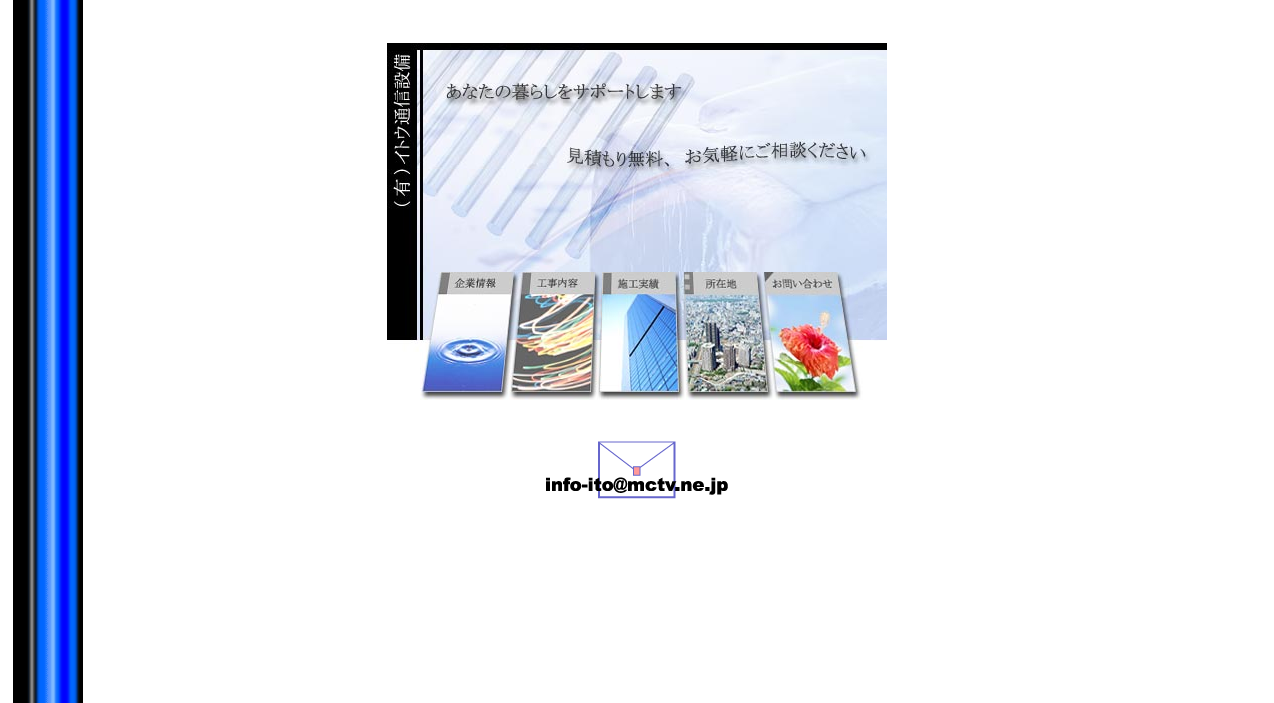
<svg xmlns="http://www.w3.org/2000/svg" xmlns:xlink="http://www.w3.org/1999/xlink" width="1274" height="703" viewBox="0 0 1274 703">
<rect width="100%" height="100%" fill="#ffffff"/>
<image xlink:href="image0.png" x="13" y="0" width="70" height="703"/>
<image xlink:href="image1.png" x="387" y="43" width="249" height="126"/>
<image xlink:href="image2.png" x="636" y="43" width="251" height="126"/>
<image xlink:href="image3.png" x="387" y="169" width="249" height="103"/>
<image xlink:href="image4.png" x="636" y="169" width="1" height="102"/>
<image xlink:href="image5.png" x="637" y="169" width="250" height="102"/>
<image xlink:href="image6.png" x="636" y="271" width="251" height="1"/>
<image xlink:href="image7.png" x="387" y="272" width="33" height="80"/>
<image xlink:href="image8.png" x="420" y="272" width="89" height="128"/>
<image xlink:href="image9.png" x="509" y="272" width="93" height="128"/>
<image xlink:href="image10.png" x="602" y="272" width="84" height="128"/>
<image xlink:href="image11.png" x="686" y="272" width="76" height="128"/>
<image xlink:href="image12.png" x="762" y="272" width="101" height="128"/>
<image xlink:href="image13.png" x="863" y="272" width="24" height="69"/>
<image xlink:href="image14.png" x="546" y="441" width="182" height="58"/>
</svg>
